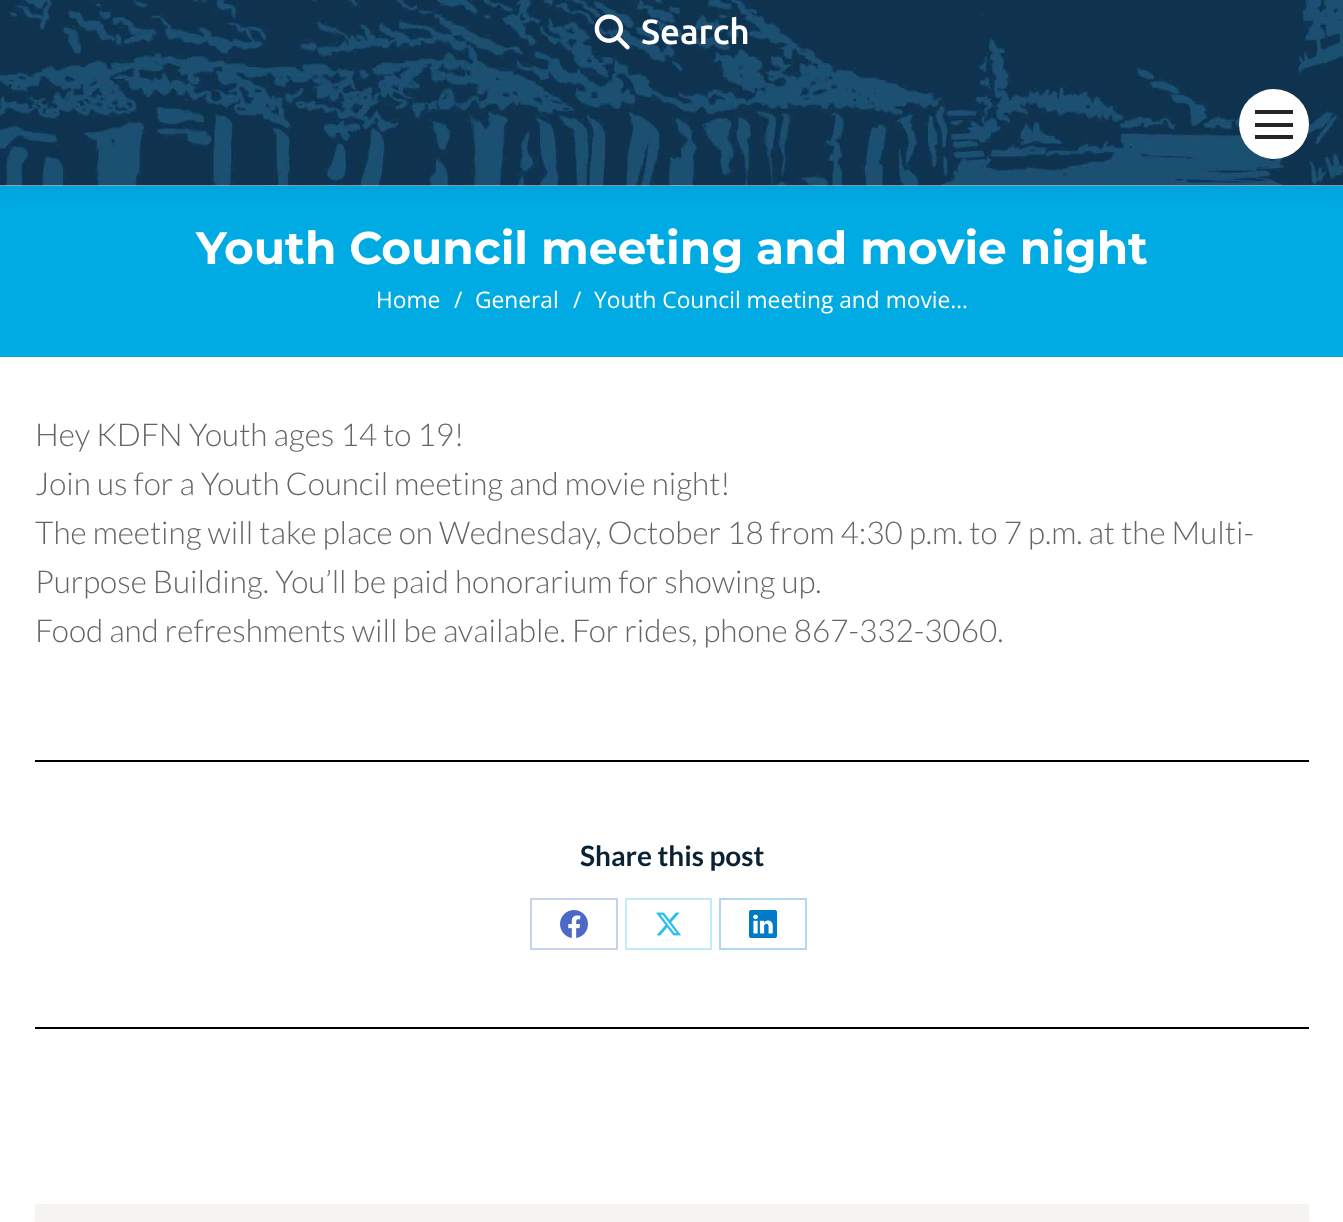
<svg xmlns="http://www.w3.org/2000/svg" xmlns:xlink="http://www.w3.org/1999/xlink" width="1343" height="1222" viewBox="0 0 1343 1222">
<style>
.cls-1{font:500 35px Ubuntu;fill:#ffffff}
.cls-2{font:bold 45.5px Montserrat;fill:#ffffff}
.cls-3{font:22.75px Open Sans;fill:#ffffff}
.cls-4{font:300 31.5px Lato;fill:#656565}
.cls-5{font:bold 28px Lato;fill:#0a2234}
</style>
<rect width="100%" height="100%" fill="#ffffff"/>
<rect fill="#00abe3" x="0" y="186" width="1343" height="171"/>
<rect fill="#000000" fill-opacity="0.07" filter="blur(13px)" x="-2" y="-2" width="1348" height="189"/>
<rect fill="#ffffff" x="0" y="185" width="1343" height="1"/>
<image xlink:href="image0.png" x="0" y="0" width="1343" height="186"/>
<image xlink:href="image1.png" x="594" y="14" width="36" height="36"/>
<circle fill="#ffffff" cx="1274" cy="124" r="35"/>
<rect fill="#252525" x="1255" y="110" width="38" height="4"/>
<rect fill="#252525" x="1255" y="123" width="38" height="4"/>
<rect fill="#252525" x="1255" y="135" width="38" height="4"/>
<rect fill="#000000" x="35" y="760" width="1274" height="2"/>
<rect fill="#000000" x="35" y="1027" width="1274" height="2"/>
<rect fill="none" stroke="#c9d2ee" stroke-width="2" x="531" y="899" width="86" height="50"/>
<image xlink:href="image2.png" x="560" y="910" width="28" height="28"/>
<rect fill="none" stroke="#bfecf9" stroke-width="2" x="626" y="899" width="85" height="50"/>
<image xlink:href="image3.png" x="656" y="912" width="25" height="24"/>
<rect fill="none" stroke="#b3d7ee" stroke-width="2" x="720" y="899" width="86" height="50"/>
<image xlink:href="image4.png" x="749" y="910" width="28" height="28"/>
<rect fill="#f6f4f0" x="35" y="1204" width="1274" height="18"/>
<text class="cls-1" x="641" y="44">Search</text>
<text class="cls-2" x="196" y="264">Youth Council meeting and movie night</text>
<text class="cls-3" x="376" y="308">Home</text>
<text class="cls-3" x="454" y="308">/</text>
<text class="cls-3" x="475" y="308">General</text>
<text class="cls-3" x="573" y="308">/</text>
<text class="cls-3" x="594" y="308">Youth Council meeting and movie…</text>
<text class="cls-4"><tspan x="35" y="446">Hey KDFN Youth ages 14 to 19!</tspan><tspan x="35" y="495">Join us for a Youth Council meeting and movie night!</tspan><tspan x="35" y="544">The meeting will take place on Wednesday, October 18 from 4:30 p.m. to 7 p.m. at the Multi-</tspan><tspan x="35" y="593">Purpose Building. You’ll be paid honorarium for showing up.</tspan><tspan x="35" y="642">Food and refreshments will be available. For rides, phone 867-332-3060.</tspan></text>
<text class="cls-5" x="580" y="866">Share this post</text>
</svg>
